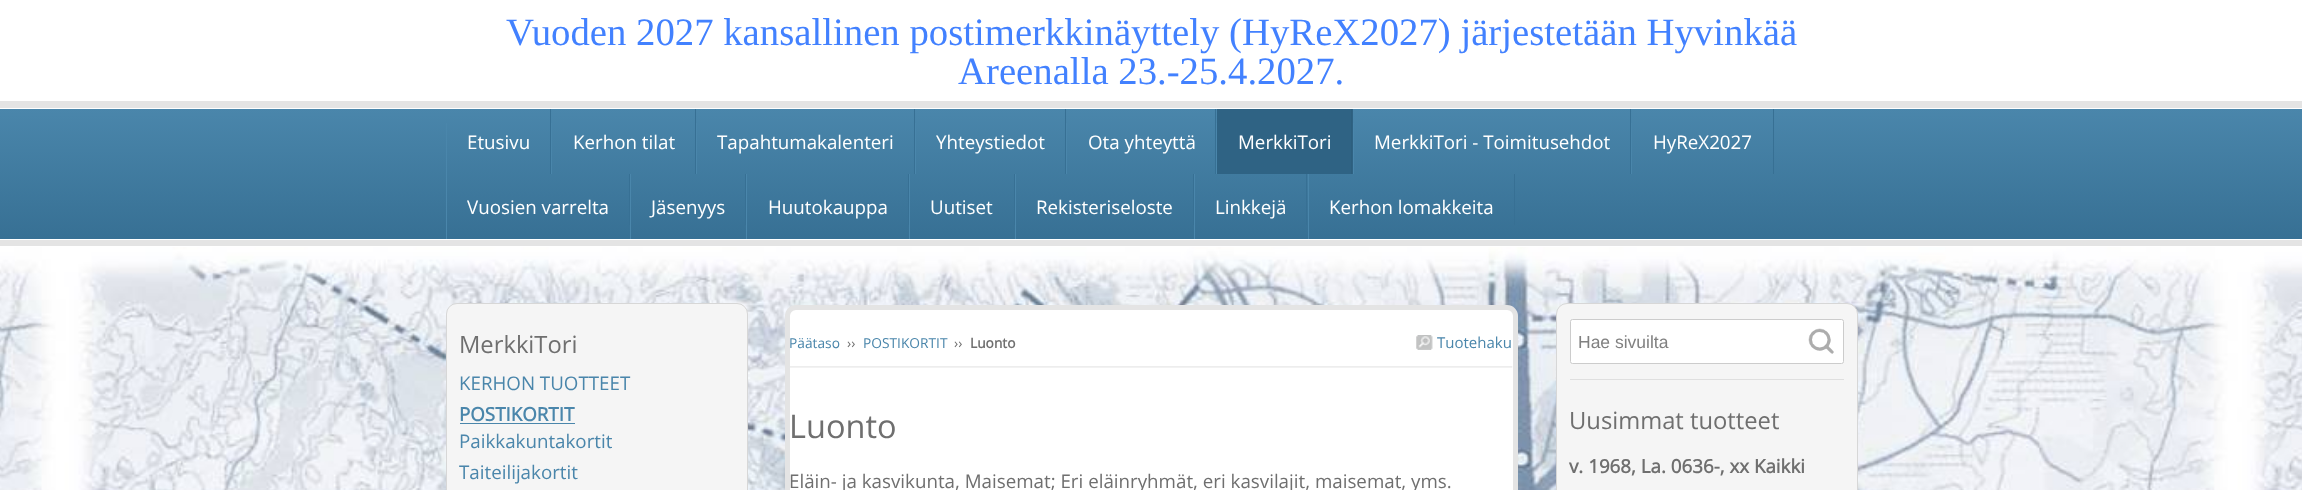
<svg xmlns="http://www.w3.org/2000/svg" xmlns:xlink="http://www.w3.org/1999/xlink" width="2302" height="490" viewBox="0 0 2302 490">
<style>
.cls-1{font:38.75px Liberation Serif;fill:#4281ff}
.cls-2{font:18.75px Open Sans;fill:#ffffff}
.cls-3{font:23.75px Open Sans;fill:#6f6f6f}
.cls-4{font:18.75px Open Sans;fill:#4a86ab}
.cls-5{font:bold 18.75px Open Sans;fill:#4a86ab}
.cls-6{font:13.75px Open Sans;fill:#4a86ab}
.cls-7{font:13.75px Open Sans;fill:#6f6f6f}
.cls-8{font:bold 13.75px Open Sans;fill:#6f6f6f}
.cls-9{font:15px Open Sans;fill:#4a86ab}
.cls-10{font:32.5px Open Sans;fill:#6f6f6f}
.cls-11{font:18.75px Open Sans;fill:#6f6f6f}
.cls-12{font:17.5px Liberation Sans;fill:#818181}
.cls-13{font:bold 18.75px Open Sans;fill:#6f6f6f}
</style>
<defs>
<linearGradient id="g1" gradientUnits="userSpaceOnUse" x1="1151" y1="109" x2="1151" y2="239"><stop offset="0" stop-color="#4a86ab"/><stop offset="1" stop-color="#377094"/></linearGradient>
</defs>
<rect width="100%" height="100%" fill="#ffffff"/>
<rect fill="#e4e4e4" x="0" y="101" width="2302" height="7"/>
<rect fill="url(#g1)" x="0" y="109" width="2302" height="130"/>
<rect fill="#377094" x="550" y="109" width="1" height="65"/>
<rect fill="#4a86ab" x="446" y="123" width="1" height="116"/>
<rect fill="#377094" x="695" y="109" width="1" height="65"/>
<rect fill="#4a86ab" x="551" y="123" width="1" height="51"/>
<rect fill="#377094" x="914" y="109" width="1" height="65"/>
<rect fill="#4a86ab" x="696" y="123" width="1" height="51"/>
<rect fill="#377094" x="1065" y="109" width="1" height="65"/>
<rect fill="#4a86ab" x="915" y="123" width="1" height="51"/>
<rect fill="#377094" x="1215" y="109" width="1" height="65"/>
<rect fill="#4a86ab" x="1066" y="123" width="1" height="51"/>
<rect fill="#2f6384" x="1217" y="109" width="136" height="65"/>
<rect fill="#2d5f7e" x="1351" y="109" width="1" height="65"/>
<rect fill="#4a86ab" x="1216" y="123" width="1" height="51"/>
<rect fill="#377094" x="1630" y="109" width="1" height="65"/>
<rect fill="#4a86ab" x="1353" y="123" width="1" height="51"/>
<rect fill="#377094" x="1773" y="109" width="1" height="65"/>
<rect fill="#4a86ab" x="1631" y="123" width="1" height="51"/>
<rect fill="#377094" x="629" y="174" width="1" height="51"/>
<rect fill="#377094" x="745" y="174" width="1" height="51"/>
<rect fill="#4a86ab" x="630" y="174" width="1" height="65"/>
<rect fill="#377094" x="908" y="174" width="1" height="51"/>
<rect fill="#4a86ab" x="746" y="174" width="1" height="65"/>
<rect fill="#377094" x="1014" y="174" width="1" height="51"/>
<rect fill="#4a86ab" x="909" y="174" width="1" height="65"/>
<rect fill="#377094" x="1193" y="174" width="1" height="51"/>
<rect fill="#4a86ab" x="1015" y="174" width="1" height="65"/>
<rect fill="#377094" x="1306" y="174" width="1" height="51"/>
<rect fill="#4a86ab" x="1194" y="174" width="1" height="65"/>
<rect fill="#377094" x="1514" y="174" width="1" height="51"/>
<rect fill="#4a86ab" x="1308" y="174" width="1" height="65"/>
<image xlink:href="image0.png" x="0" y="247" width="2302" height="243"/>
<rect fill="#e4e4e4" x="0" y="240" width="2302" height="6"/>
<rect fill="#f5f5f5" stroke="#d7d7d7" x="446.5" y="303.5" width="301" height="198" rx="10.5"/>
<rect fill="#4a86ab" x="460" y="423" width="115" height="1"/>
<rect fill="#ffffff" stroke="#e4e4e4" stroke-width="5" x="787.5" y="307.5" width="728" height="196" rx="8.5"/>
<image xlink:href="image1.png" x="1416" y="335" width="17" height="15"/>
<image xlink:href="image2.png" x="790" y="366" width="723" height="2"/>
<rect fill="#f5f5f5" stroke="#d7d7d7" x="1556.5" y="303.5" width="301" height="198" rx="10.5"/>
<rect fill="#dfdfdf" x="1570" y="379" width="274" height="1"/>
<rect fill="#ffffff" stroke="#cccccc" x="1570.5" y="319.5" width="273" height="44" rx="2"/>
<image xlink:href="image3.png" x="1808" y="328" width="26" height="26"/>
<text class="cls-1" x="506" y="45">Vuoden 2027 kansallinen postimerkkinäyttely (HyReX2027) järjestetään Hyvinkää</text>
<text class="cls-1" x="958" y="84">Areenalla 23.-25.4.2027.</text>
<text class="cls-2" x="467" y="149">Etusivu</text>
<text class="cls-2" x="573" y="149">Kerhon tilat</text>
<text class="cls-2" x="717" y="149">Tapahtumakalenteri</text>
<text class="cls-2" x="936" y="149">Yhteystiedot</text>
<text class="cls-2" x="1088" y="149">Ota yhteyttä</text>
<text class="cls-2" x="1238" y="149">MerkkiTori</text>
<text class="cls-2" x="1374" y="149">MerkkiTori - Toimitusehdot</text>
<text class="cls-2" x="1653" y="149">HyReX2027</text>
<text class="cls-2" x="467" y="214">Vuosien varrelta</text>
<text class="cls-2" x="651" y="214">Jäsenyys</text>
<text class="cls-2" x="768" y="214">Huutokauppa</text>
<text class="cls-2" x="930" y="214">Uutiset</text>
<text class="cls-2" x="1036" y="214">Rekisteriseloste</text>
<text class="cls-2" x="1215" y="214">Linkkejä</text>
<text class="cls-2" x="1329" y="214">Kerhon lomakkeita</text>
<text class="cls-3" x="459" y="353">MerkkiTori</text>
<text class="cls-4" x="459" y="390">KERHON TUOTTEET</text>
<text class="cls-5" x="459" y="421">POSTIKORTIT</text>
<text class="cls-4"><tspan x="459" y="448">Paikkakuntakortit</tspan><tspan x="459" y="479">Taiteilijakortit</tspan></text>
<text class="cls-6" x="789" y="348">Päätaso</text>
<text class="cls-7" x="847" y="348">››</text>
<text class="cls-6" x="863" y="348">POSTIKORTIT</text>
<text class="cls-7" x="954" y="348">››</text>
<text class="cls-8" x="970" y="348">Luonto</text>
<text class="cls-9" x="1437" y="348">Tuotehaku</text>
<text class="cls-10" x="789" y="438">Luonto</text>
<text class="cls-11" x="789" y="488">Eläin- ja kasvikunta, Maisemat; Eri eläinryhmät, eri kasvilajit, maisemat, yms.</text>
<text class="cls-12" x="1578" y="348">Hae sivuilta</text>
<text class="cls-3" x="1569" y="429">Uusimmat tuotteet</text>
<text class="cls-13" x="1569" y="473">v. 1968, La. 0636-, xx Kaikki</text>
</svg>
